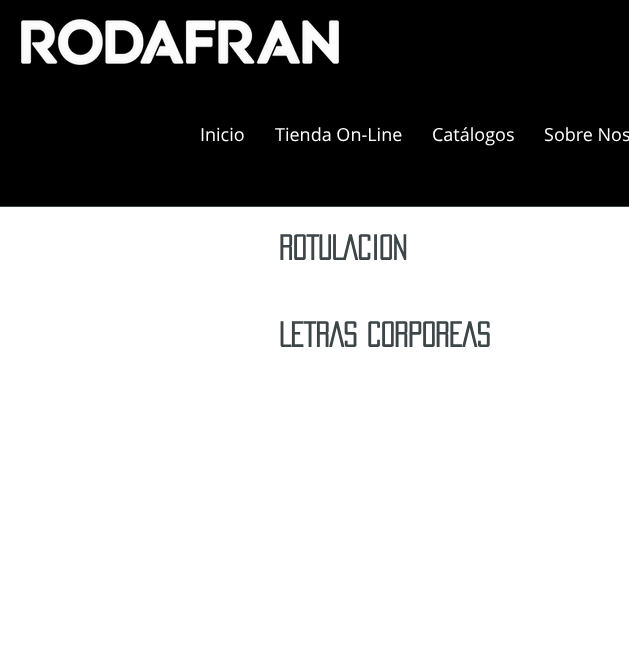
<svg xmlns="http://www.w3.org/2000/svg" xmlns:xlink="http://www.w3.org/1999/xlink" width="629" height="670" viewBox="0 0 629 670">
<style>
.cls-1{font:18px Open Sans;fill:#ffffff}
.cls-2{font:bold 31px 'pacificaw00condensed';fill:#3c4547}
</style>
<rect width="100%" height="100%" fill="#ffffff"/>
<rect fill="#000000" x="0" y="0" width="629" height="206"/>
<rect fill="#3c4547" x="0" y="206" width="629" height="1"/>
<image xlink:href="image0.png" x="21" y="19" width="318" height="46"/>
<text class="cls-1" x="200" y="141">Inicio</text>
<text class="cls-1" x="275" y="141">Tienda On-Line</text>
<text class="cls-1" x="432" y="141">Catálogos</text>
<text class="cls-1" x="544" y="141">Sobre Nos</text>
<text class="cls-2" x="279" y="260">ROTULACION</text>
<text class="cls-2" x="279" y="347">LETRAS CORPOREAS</text>
</svg>
